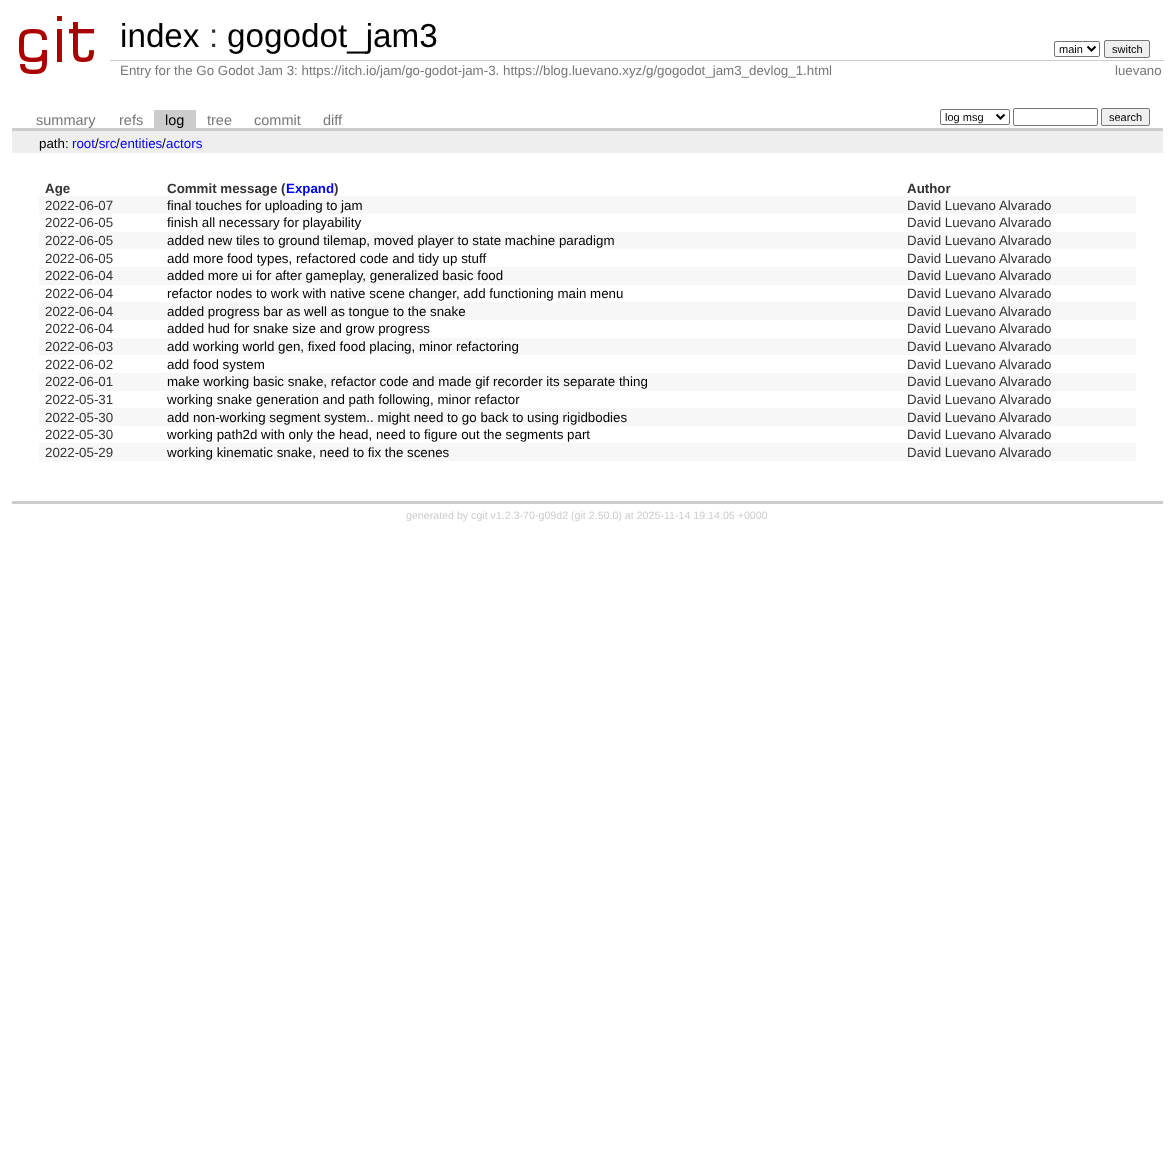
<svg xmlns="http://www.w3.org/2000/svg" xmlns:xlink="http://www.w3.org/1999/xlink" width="1175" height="1156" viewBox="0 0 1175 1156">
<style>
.cls-1{font:33.25px Liberation Sans;fill:#000000}
.cls-2{font:33.25px Liberation Sans;fill:#333333}
.cls-3{font:11px Liberation Sans;fill:#000000}
.cls-4{font:13.33px Liberation Sans;fill:#777777}
.cls-5{font:14.5px Liberation Sans;fill:#777777}
.cls-6{font:14.5px Liberation Sans;fill:#000000}
.cls-7{font:13.33px Liberation Sans;fill:#000000}
.cls-8{font:13.33px Liberation Sans;fill:#0000ff}
.cls-9{font:bold 13.33px Liberation Sans;fill:#333333}
.cls-10{font:bold 13.33px Liberation Sans;fill:#0000ff}
.cls-11{font:13.33px Liberation Sans;fill:#333333}
.cls-12{font:10.65px Liberation Sans;fill:#cccccc}
</style>
<rect width="100%" height="100%" fill="#ffffff"/>
<image xlink:href="image0.png" x="19" y="16" width="75" height="58"/>
<rect fill="none" stroke="#767676" x="1054.5" y="41.5" width="45" height="15" rx="1.5"/>
<path fill="none" stroke="#000000" stroke-width="2" d="M1087.5 46.5L1091.5 50.5L1095.5 46.5"/>
<rect fill="#efefef" stroke="#767676" x="1104.5" y="40.5" width="45" height="17" rx="1.5"/>
<rect fill="#cccccc" x="110" y="60" width="1054" height="1"/>
<rect fill="#cccccc" x="12" y="128" width="1151" height="3"/>
<rect fill="#cccccc" x="154" y="110" width="42" height="18"/>
<rect fill="none" stroke="#767676" x="940.5" y="109.5" width="69" height="15" rx="1.5"/>
<path fill="none" stroke="#000000" stroke-width="2" d="M996.5 114.5L1000.5 118.5L1004.5 114.5"/>
<rect fill="none" stroke="#767676" x="1013.5" y="108.5" width="84" height="17" rx="1.5"/>
<rect fill="#efefef" stroke="#767676" x="1101.5" y="108.5" width="48" height="17" rx="1.5"/>
<rect fill="#eeeeee" x="12" y="131" width="1151" height="22"/>
<rect fill="#cccccc" x="12" y="501" width="1151" height="3"/>
<rect fill="#f7f7f7" x="39" y="196" width="1097" height="18"/>
<rect fill="#f7f7f7" x="39" y="232" width="1097" height="17"/>
<rect fill="#f7f7f7" x="39" y="267" width="1097" height="18"/>
<rect fill="#f7f7f7" x="39" y="302" width="1097" height="18"/>
<rect fill="#f7f7f7" x="39" y="338" width="1097" height="17"/>
<rect fill="#f7f7f7" x="39" y="373" width="1097" height="18"/>
<rect fill="#f7f7f7" x="39" y="408" width="1097" height="18"/>
<rect fill="#f7f7f7" x="39" y="443" width="1097" height="18"/>
<text class="cls-1" x="120" y="47">index</text>
<text class="cls-2" x="209" y="47">:</text>
<text class="cls-1" x="227" y="47">gogodot_jam3</text>
<text class="cls-3" x="1059" y="53">main</text>
<text class="cls-3" x="1112" y="53">switch</text>
<text class="cls-4" x="120" y="75">Entry for the Go Godot Jam 3: https://itch.io/jam/go-godot-jam-3. https://blog.luevano.xyz/g/gogodot_jam3_devlog_1.html</text>
<text class="cls-4" x="1115" y="75">luevano</text>
<text class="cls-5" x="36" y="125">summary</text>
<text class="cls-5" x="119" y="125">refs</text>
<text class="cls-6" x="165" y="125">log</text>
<text class="cls-5" x="207" y="125">tree</text>
<text class="cls-5" x="254" y="125">commit</text>
<text class="cls-5" x="323" y="125">diff</text>
<text class="cls-3" x="945" y="121">log msg</text>
<text class="cls-3" x="1109" y="121">search</text>
<text class="cls-7" x="39" y="148">path:</text>
<text class="cls-7" x="162" y="148">/</text>
<text class="cls-8" x="72" y="148">root src</text>
<text class="cls-7" x="116" y="148">/</text>
<text class="cls-8" x="120" y="148">entities</text>
<text class="cls-7" x="95" y="148">/</text>
<text class="cls-8" x="166" y="148">actors</text>
<text class="cls-9" x="45" y="193">Age</text>
<text class="cls-9" x="167" y="193">Commit message (</text>
<text class="cls-10" x="286" y="193">Expand</text>
<text class="cls-9" x="334" y="193">)</text>
<text class="cls-9" x="907" y="193">Author</text>
<text class="cls-11" x="45" y="210">2022-06-07</text>
<text class="cls-7" x="167" y="210">final touches for uploading to jam</text>
<text class="cls-11" x="907" y="210">David Luevano Alvarado</text>
<text class="cls-11" x="45" y="227">2022-06-05</text>
<text class="cls-7" x="167" y="227">finish all necessary for playability</text>
<text class="cls-11" x="907" y="227">David Luevano Alvarado</text>
<text class="cls-11" x="45" y="245">2022-06-05</text>
<text class="cls-7" x="167" y="245">added new tiles to ground tilemap, moved player to state machine paradigm</text>
<text class="cls-11" x="907" y="245">David Luevano Alvarado</text>
<text class="cls-11" x="45" y="263">2022-06-05</text>
<text class="cls-7" x="167" y="263">add more food types, refactored code and tidy up stuff</text>
<text class="cls-11" x="907" y="263">David Luevano Alvarado</text>
<text class="cls-11" x="45" y="280">2022-06-04</text>
<text class="cls-7" x="167" y="280">added more ui for after gameplay, generalized basic food</text>
<text class="cls-11" x="907" y="280">David Luevano Alvarado</text>
<text class="cls-11" x="45" y="298">2022-06-04</text>
<text class="cls-7" x="167" y="298">refactor nodes to work with native scene changer, add functioning main menu</text>
<text class="cls-11" x="907" y="298">David Luevano Alvarado</text>
<text class="cls-11" x="45" y="316">2022-06-04</text>
<text class="cls-7" x="167" y="316">added progress bar as well as tongue to the snake</text>
<text class="cls-11" x="907" y="316">David Luevano Alvarado</text>
<text class="cls-11" x="45" y="333">2022-06-04</text>
<text class="cls-7" x="167" y="333">added hud for snake size and grow progress</text>
<text class="cls-11" x="907" y="333">David Luevano Alvarado</text>
<text class="cls-11" x="45" y="351">2022-06-03</text>
<text class="cls-7" x="167" y="351">add working world gen, fixed food placing, minor refactoring</text>
<text class="cls-11" x="907" y="351">David Luevano Alvarado</text>
<text class="cls-11" x="45" y="369">2022-06-02</text>
<text class="cls-7" x="167" y="369">add food system</text>
<text class="cls-11" x="907" y="369">David Luevano Alvarado</text>
<text class="cls-11" x="45" y="386">2022-06-01</text>
<text class="cls-7" x="167" y="386">make working basic snake, refactor code and made gif recorder its separate thing</text>
<text class="cls-11" x="907" y="386">David Luevano Alvarado</text>
<text class="cls-11" x="45" y="404">2022-05-31</text>
<text class="cls-7" x="167" y="404">working snake generation and path following, minor refactor</text>
<text class="cls-11" x="907" y="404">David Luevano Alvarado</text>
<text class="cls-11" x="45" y="422">2022-05-30</text>
<text class="cls-7" x="167" y="422">add non-working segment system.. might need to go back to using rigidbodies</text>
<text class="cls-11" x="907" y="422">David Luevano Alvarado</text>
<text class="cls-11" x="45" y="439">2022-05-30</text>
<text class="cls-7" x="167" y="439">working path2d with only the head, need to figure out the segments part</text>
<text class="cls-11" x="907" y="439">David Luevano Alvarado</text>
<text class="cls-11" x="45" y="457">2022-05-29</text>
<text class="cls-7" x="167" y="457">working kinematic snake, need to fix the scenes</text>
<text class="cls-11" x="907" y="457">David Luevano Alvarado</text>
<text class="cls-12" x="406" y="519">generated by cgit v1.2.3-70-g09d2 (git 2.50.0) at 2025-11-14 19:14:05 +0000</text>
</svg>
